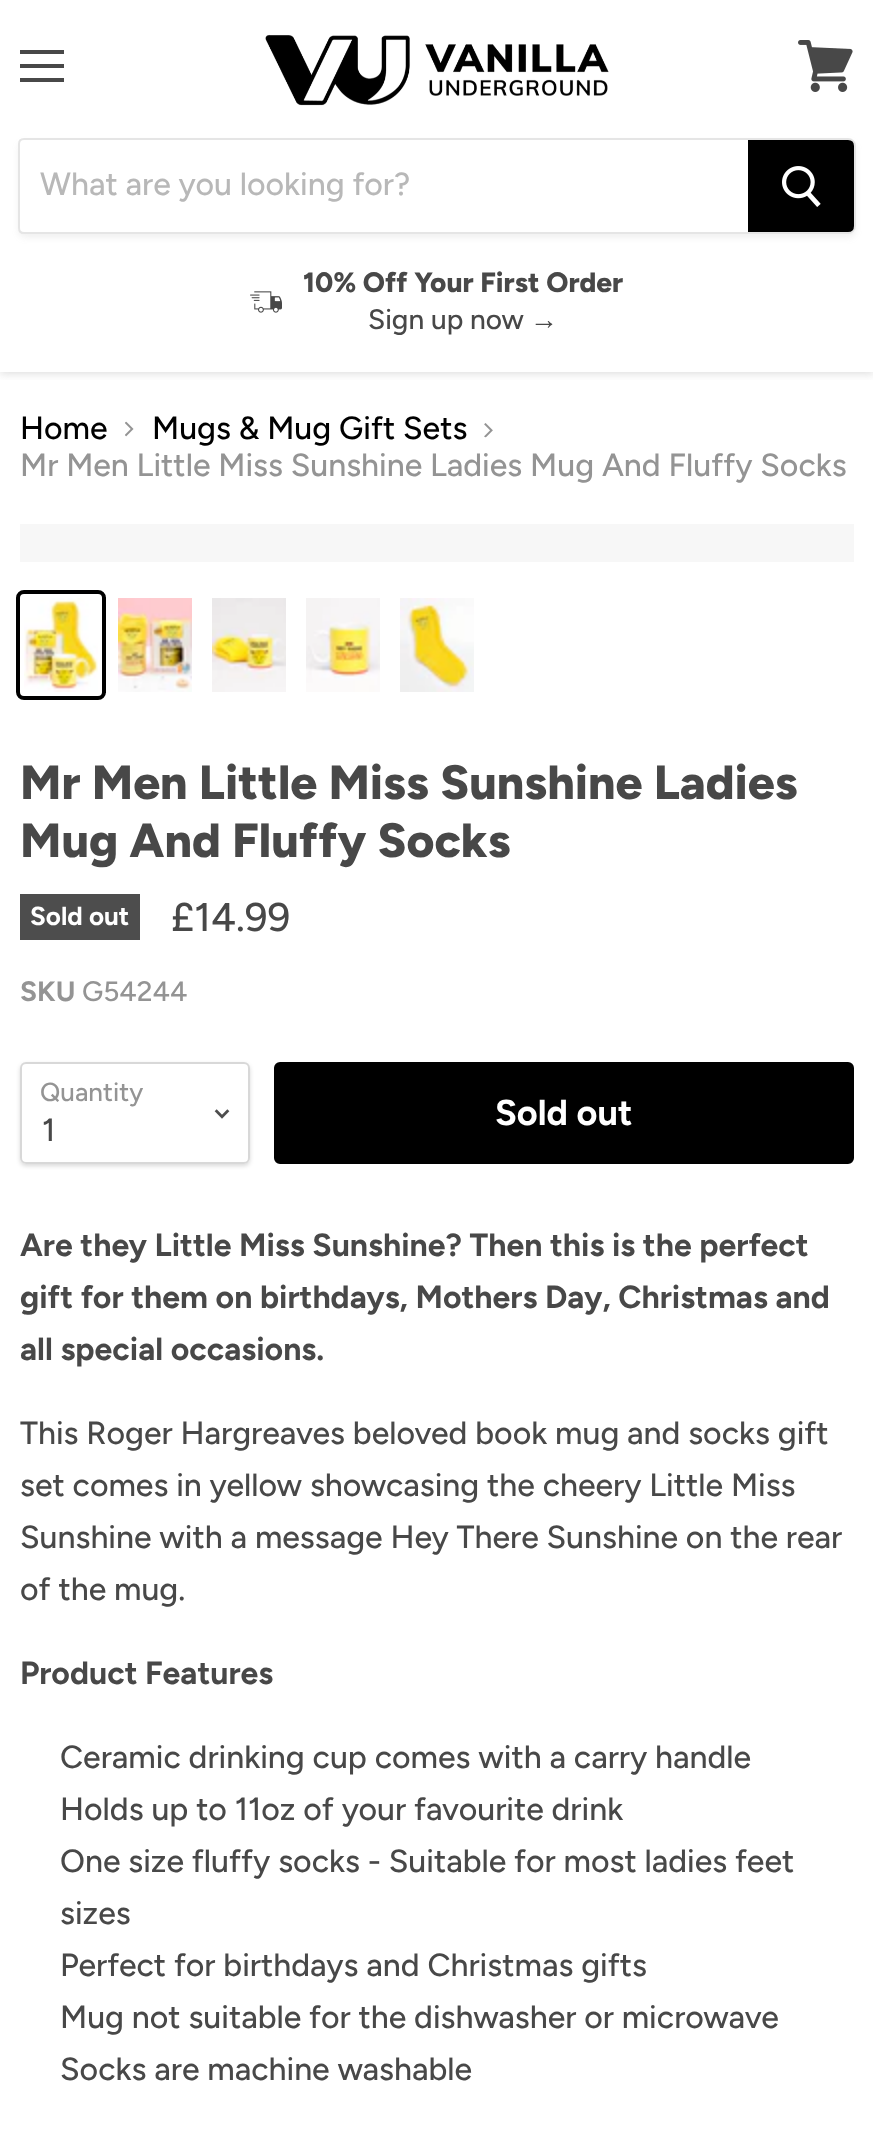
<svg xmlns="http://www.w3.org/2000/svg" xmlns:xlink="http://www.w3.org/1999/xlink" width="873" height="2145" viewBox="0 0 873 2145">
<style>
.cls-1{font:500 32px Figtree;fill:#b8b8b8}
.cls-2{font:800 28px Figtree;fill:#484848}
.cls-3{font:500 28px Figtree;fill:#484848}
.cls-4{font:28px Liberation Sans;fill:#484848}
.cls-5{font:500 32px Figtree;fill:#000000}
.cls-6{font:500 32px Figtree;fill:#949494}
.cls-7{font:800 48px Figtree;fill:#484848}
.cls-8{font:bold 26px Figtree;fill:#ffffff}
.cls-9{font:500 40px Figtree;fill:#484848}
.cls-10{font:bold 28px Figtree;fill:#949494}
.cls-11{font:500 28px Figtree;fill:#949494}
.cls-12{font:500 26px Figtree;fill:#949494}
.cls-13{font:500 32px Figtree;fill:#484848}
.cls-14{font:bold 36px Figtree;fill:#ffffff}
.cls-15{font:bold 32px Figtree;fill:#484848}
</style>
<defs>
<clipPath id="clip1"><rect x="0" y="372" width="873" height="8"/></clipPath>
<clipPath id="clip2"><path d="M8 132H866V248H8ZM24 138H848C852.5 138 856 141.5 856 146V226C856 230.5 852.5 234 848 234H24C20.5 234 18 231.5 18 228V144C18 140.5 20.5 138 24 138Z" clip-rule="evenodd"/></clipPath>
<clipPath id="clip3"><path d="M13 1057H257V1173H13ZM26 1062H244C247.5 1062 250 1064.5 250 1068V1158C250 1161.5 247.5 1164 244 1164H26C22.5 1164 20 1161.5 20 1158V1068C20 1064.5 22.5 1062 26 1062Z" clip-rule="evenodd"/></clipPath>
</defs>
<rect width="100%" height="100%" fill="#ffffff"/>
<g clip-path="url(#clip1)">
<rect fill="#7f7f7f" fill-opacity="0.25" filter="blur(4px)" x="0" y="2" width="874" height="372"/>
</g>
<rect fill="#484848" x="20" y="50" width="44" height="4"/>
<rect fill="#484848" x="20" y="64" width="44" height="4"/>
<rect fill="#484848" x="20" y="78" width="44" height="4"/>
<image xlink:href="image0.png" x="798" y="40" width="55" height="52"/>
<image xlink:href="image1.png" x="265" y="34" width="344" height="72"/>
<g clip-path="url(#clip2)">
<rect fill="#7f7f7f" fill-opacity="0.11" filter="blur(3px)" x="18" y="142" width="838" height="96" rx="8"/>
</g>
<path fill="none" stroke="#7f7f7f" stroke-opacity="0.2" stroke-width="2" d="M24 139H848C852 139 855 142 855 146V226C855 230 852 233 848 233H24C21 233 19 231 19 228V144C19 141 21 139 24 139Z"/>
<path fill="#000000" stroke="#000000" stroke-width="2" d="M749 141H848C851 141 853 143 853 146V226C853 229 851 231 848 231H749Z"/>
<image xlink:href="image2.png" x="782" y="166" width="39" height="41"/>
<image xlink:href="image3.png" x="250" y="291" width="32" height="22"/>
<image xlink:href="image4.png" x="125" y="421" width="9" height="16"/>
<image xlink:href="image5.png" x="484" y="423" width="9" height="15"/>
<rect fill="#f7f7f7" x="20" y="524" width="834" height="38"/>
<rect fill="none" stroke="#000000" stroke-width="4" x="18" y="592" width="86" height="106" rx="6"/>
<image xlink:href="image6.png" x="24" y="598" width="74" height="94"/>
<image xlink:href="image7.png" x="118" y="598" width="74" height="94"/>
<image xlink:href="image8.png" x="212" y="598" width="74" height="94"/>
<image xlink:href="image9.png" x="306" y="598" width="74" height="94"/>
<image xlink:href="image10.png" x="400" y="598" width="74" height="94"/>
<rect fill="#4d4d4d" x="20" y="894" width="120" height="46"/>
<g clip-path="url(#clip3)">
<rect fill="#000000" fill-opacity="0.15" filter="blur(2px)" x="20" y="1064" width="230" height="102" rx="6"/>
</g>
<rect fill="none" stroke="#7f7f7f" stroke-opacity="0.3" stroke-width="2" x="21" y="1063" width="228" height="100" rx="5"/>
<image xlink:href="image11.png" x="214" y="1109" width="16" height="10"/>
<rect fill="#000000" stroke="#000000" stroke-width="2" x="275" y="1063" width="578" height="100" rx="5"/>
<text class="cls-1" x="40" y="195">What are you looking for?</text>
<text class="cls-2" x="303" y="292">10% Off Your First Order</text>
<text class="cls-3" x="368" y="329">Sign up now</text>
<text class="cls-4" x="530" y="329">→</text>
<text class="cls-5" x="20" y="439">Home</text>
<text class="cls-5" x="152" y="439">Mugs &amp; Mug Gift Sets</text>
<text class="cls-6" x="20" y="476">Mr Men Little Miss Sunshine Ladies Mug And Fluffy Socks</text>
<text class="cls-7"><tspan x="20" y="799">Mr Men Little Miss Sunshine Ladies</tspan><tspan x="20" y="857">Mug And Fluffy Socks</tspan></text>
<text class="cls-8" x="30" y="925">Sold out</text>
<text class="cls-9" x="171" y="931">£14.99</text>
<text class="cls-10" x="20" y="1001">SKU</text>
<text class="cls-11" x="82" y="1001">G54244</text>
<text class="cls-12" x="40" y="1101">Quantity</text>
<text class="cls-13" x="42" y="1141">1</text>
<text class="cls-14" x="495" y="1125">Sold out</text>
<text class="cls-15"><tspan x="20" y="1256">Are they Little Miss Sunshine? Then this is the perfect</tspan><tspan x="20" y="1308">gift for them on birthdays, Mothers Day, Christmas and</tspan><tspan x="20" y="1360">all special occasions.</tspan></text>
<text class="cls-13"><tspan x="20" y="1444">This Roger Hargreaves beloved book mug and socks gift</tspan><tspan x="20" y="1496">set comes in yellow showcasing the cheery Little Miss</tspan><tspan x="20" y="1548">Sunshine with a message Hey There Sunshine on the rear</tspan><tspan x="20" y="1600">of the mug.</tspan></text>
<text class="cls-15" x="20" y="1684">Product Features</text>
<text class="cls-13"><tspan x="60" y="1768">Ceramic drinking cup comes with a carry handle</tspan><tspan x="60" y="1820">Holds up to 11oz of your favourite drink</tspan><tspan x="60" y="1872">One size fluffy socks - Suitable for most ladies feet</tspan><tspan x="60" y="1924">sizes</tspan><tspan x="60" y="1976">Perfect for birthdays and Christmas gifts</tspan><tspan x="60" y="2028">Mug not suitable for the dishwasher or microwave</tspan><tspan x="60" y="2080">Socks are machine washable</tspan></text>
</svg>
